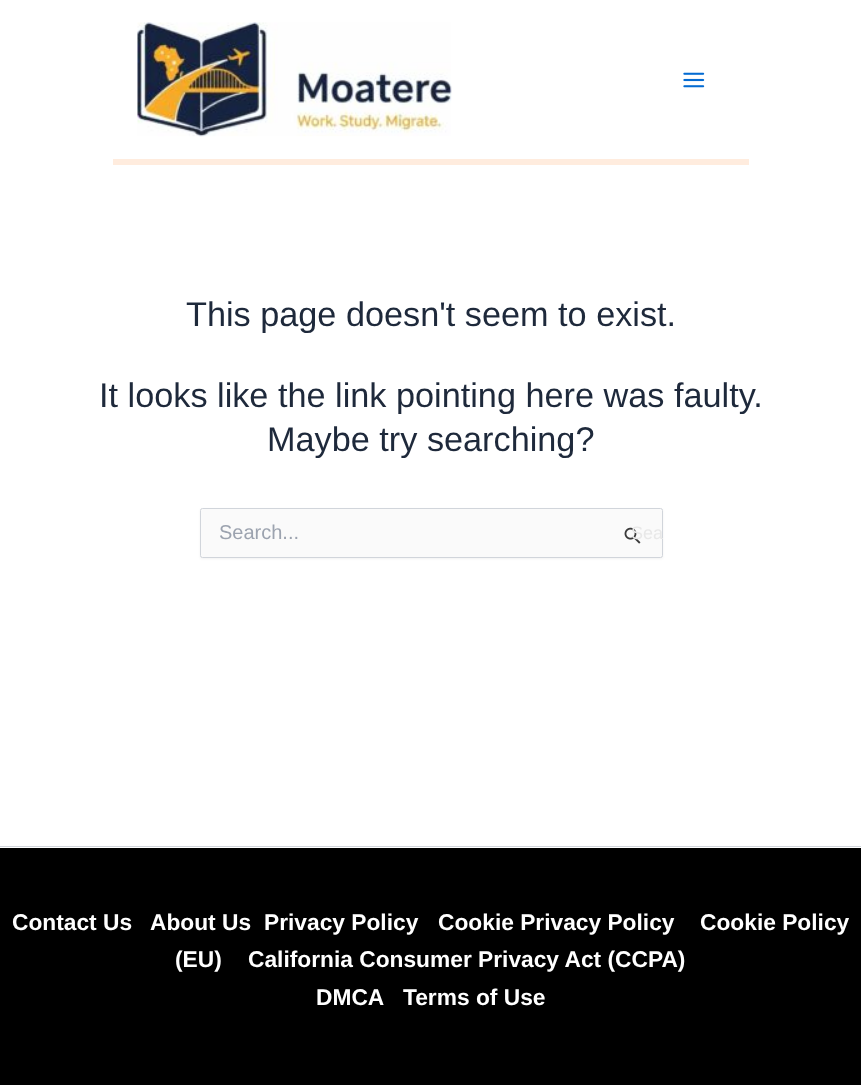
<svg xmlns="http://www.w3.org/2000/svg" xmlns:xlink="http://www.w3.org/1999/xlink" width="861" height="1085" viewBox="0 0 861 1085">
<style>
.cls-1{font:34.25px Liberation Sans;fill:#1e293b}
.cls-2{font:20px Liberation Sans;fill:#9ca3af}
.cls-3{font:18px Liberation Sans;fill:#e8e8e8}
.cls-4{font:bold 22.75px Liberation Sans;fill:#ffffff}
</style>
<rect width="100%" height="100%" fill="#ffffff"/>
<rect fill="#ffecde" x="113" y="159" width="636" height="6"/>
<image xlink:href="image0.png" x="137" y="22" width="315" height="115"/>
<image xlink:href="image1.png" x="683" y="72" width="22" height="16"/>
<rect fill="#000000" fill-opacity="0.05" filter="blur(1px)" x="200" y="509" width="463" height="50" rx="2.5"/>
<rect fill="#fafafa" stroke="#d1d5db" x="200.5" y="508.5" width="462" height="49" rx="2"/>
<image xlink:href="image2.png" x="624" y="527" width="17" height="17"/>
<rect fill="#000000" x="0" y="848" width="861" height="237"/>
<rect fill="#d1d5db" x="0" y="846" width="861" height="1"/>
<text class="cls-1" x="186" y="326">This page doesn't seem to exist.</text>
<text class="cls-1" x="99" y="407">It looks like the link pointing here was faulty.</text>
<text class="cls-1" x="267" y="451">Maybe try searching?</text>
<text class="cls-2" x="219" y="539">Search...</text>
<text class="cls-3" x="631" y="539">Sea</text>
<text class="cls-4" x="12" y="930">Contact Us</text>
<text class="cls-4" x="150" y="930">About Us</text>
<text class="cls-4" x="264" y="930">Privacy Policy</text>
<text class="cls-4" x="438" y="930">Cookie Privacy Policy</text>
<text class="cls-4" x="700" y="930">Cookie Policy</text>
<text class="cls-4" x="175" y="967">(EU)</text>
<text class="cls-4" x="248" y="967">California Consumer Privacy Act (CCPA)</text>
<text class="cls-4" x="316" y="1005">DMCA</text>
<text class="cls-4" x="403" y="1005">Terms of Use</text>
</svg>
